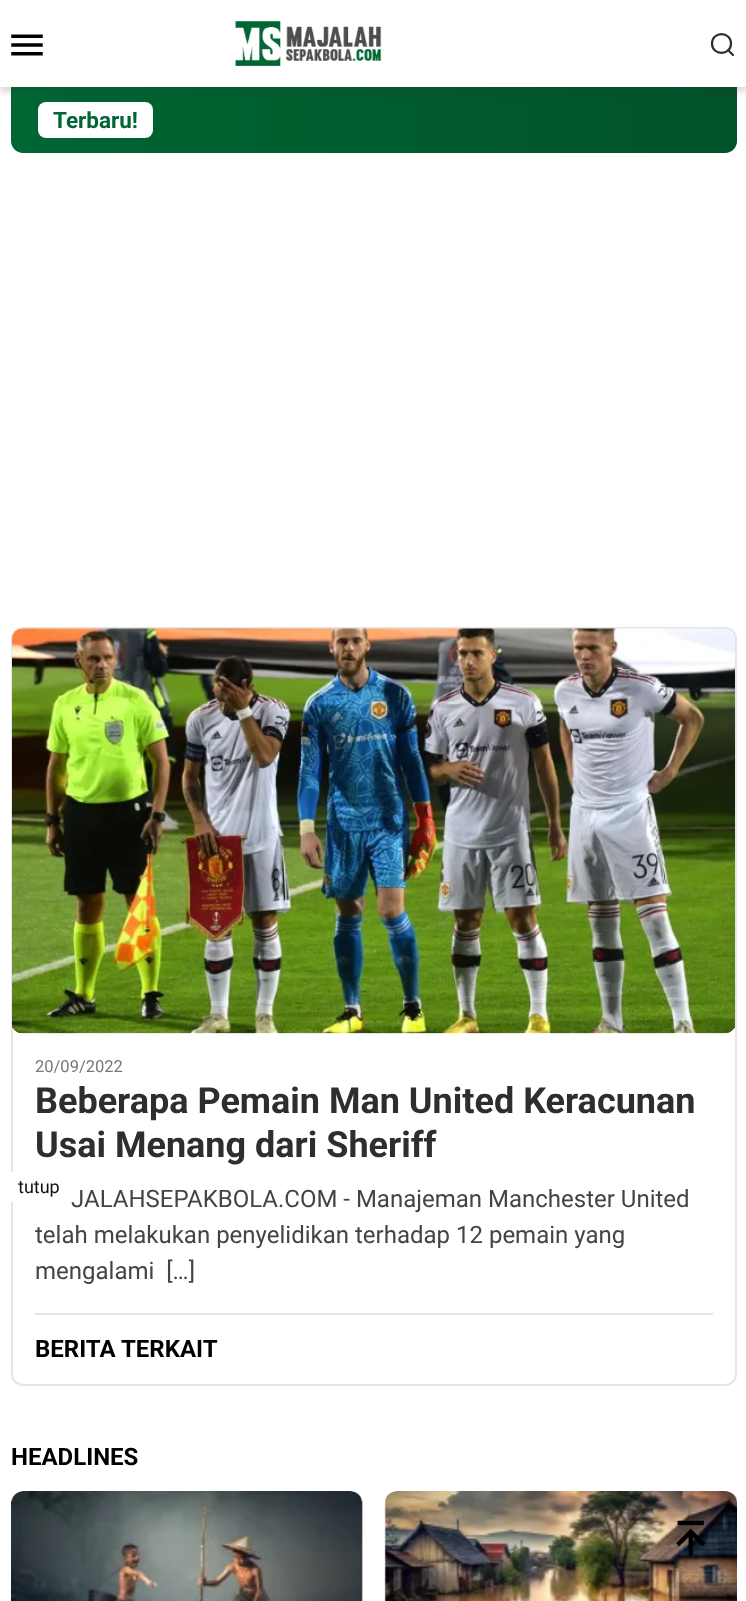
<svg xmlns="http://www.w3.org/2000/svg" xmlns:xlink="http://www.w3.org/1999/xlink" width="746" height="1601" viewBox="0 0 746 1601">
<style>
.cls-1{font:bold 22.5px Roboto;fill:#006633}
.cls-2{font:16.5px Roboto;fill:#787878}
.cls-3{font:bold 36px Roboto;fill:#2e2e2e}
.cls-4{font:24px Roboto;fill:#444444}
.cls-5{font:bold 24px Roboto;fill:#000000}
.cls-6{font:18px Roboto;fill:#111111}
</style>
<defs>
<linearGradient id="g1" gradientUnits="userSpaceOnUse" x1="11" y1="120" x2="737" y2="120"><stop offset="0" stop-color="#000000" stop-opacity="0"/><stop offset="1" stop-color="#000000" stop-opacity="0.2"/></linearGradient>
</defs>
<rect width="100%" height="100%" fill="#ffffff"/>
<path fill="#006633" d="M11 87H737V141C737 147.5 731.5 153 725 153H23C16.5 153 11 147.5 11 141Z"/>
<path fill="url(#g1)" d="M11 87H737V141C737 147.5 731.5 153 725 153H23C16.5 153 11 147.5 11 141Z"/>
<rect fill="#343434" fill-opacity="0.18" filter="blur(3px)" x="0" y="5" width="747" height="87"/>
<rect fill="#ffffff" x="0" y="1" width="746" height="86"/>
<image xlink:href="image0.png" x="11" y="34" width="32" height="22"/>
<image xlink:href="image1.png" x="235" y="21" width="147" height="45"/>
<path fill="none" stroke="#2e2e2e" stroke-width="2.2" stroke-linecap="round" d="M733 55L728 50M731 43.5C731 56 712 56 712 43.5C712 31 731 31 731 43.5Z"/>
<rect fill="#ffffff" x="38" y="102" width="115" height="36" rx="8"/>
<rect fill="none" stroke="#e5e5e5" stroke-width="2" x="12" y="628" width="724" height="757" rx="11"/>
<image xlink:href="image2.png" x="12" y="628" width="723" height="406"/>
<rect fill="#e5e5e5" x="35" y="1313" width="678" height="2"/>
<image xlink:href="image3.png" x="11" y="1491" width="352" height="110"/>
<image xlink:href="image4.png" x="384" y="1491" width="353" height="110"/>
<rect fill="#ffffff" x="11" y="1172" width="2" height="30"/>
<image xlink:href="image5.png" x="676" y="1520" width="30" height="36"/>
<text class="cls-1" x="53" y="128">Terbaru!</text>
<text class="cls-2" x="35" y="1072">20/09/2022</text>
<text class="cls-3"><tspan x="35" y="1113">Beberapa Pemain Man United Keracunan</tspan><tspan x="35" y="1157">Usai Menang dari Sheriff</tspan></text>
<text class="cls-4" x="71" y="1207">JALAHSEPAKBOLA.COM - Manajeman Manchester United</text>
<text class="cls-4" xml:space="preserve"><tspan x="35" y="1243">telah melakukan penyelidikan terhadap 12 pemain yang</tspan><tspan x="35" y="1279">mengalami  […]</tspan></text>
<text class="cls-5" x="35" y="1357">BERITA TERKAIT</text>
<text class="cls-5" x="11" y="1465">HEADLINES</text>
<text class="cls-6" x="18" y="1193">tutup</text>
</svg>
